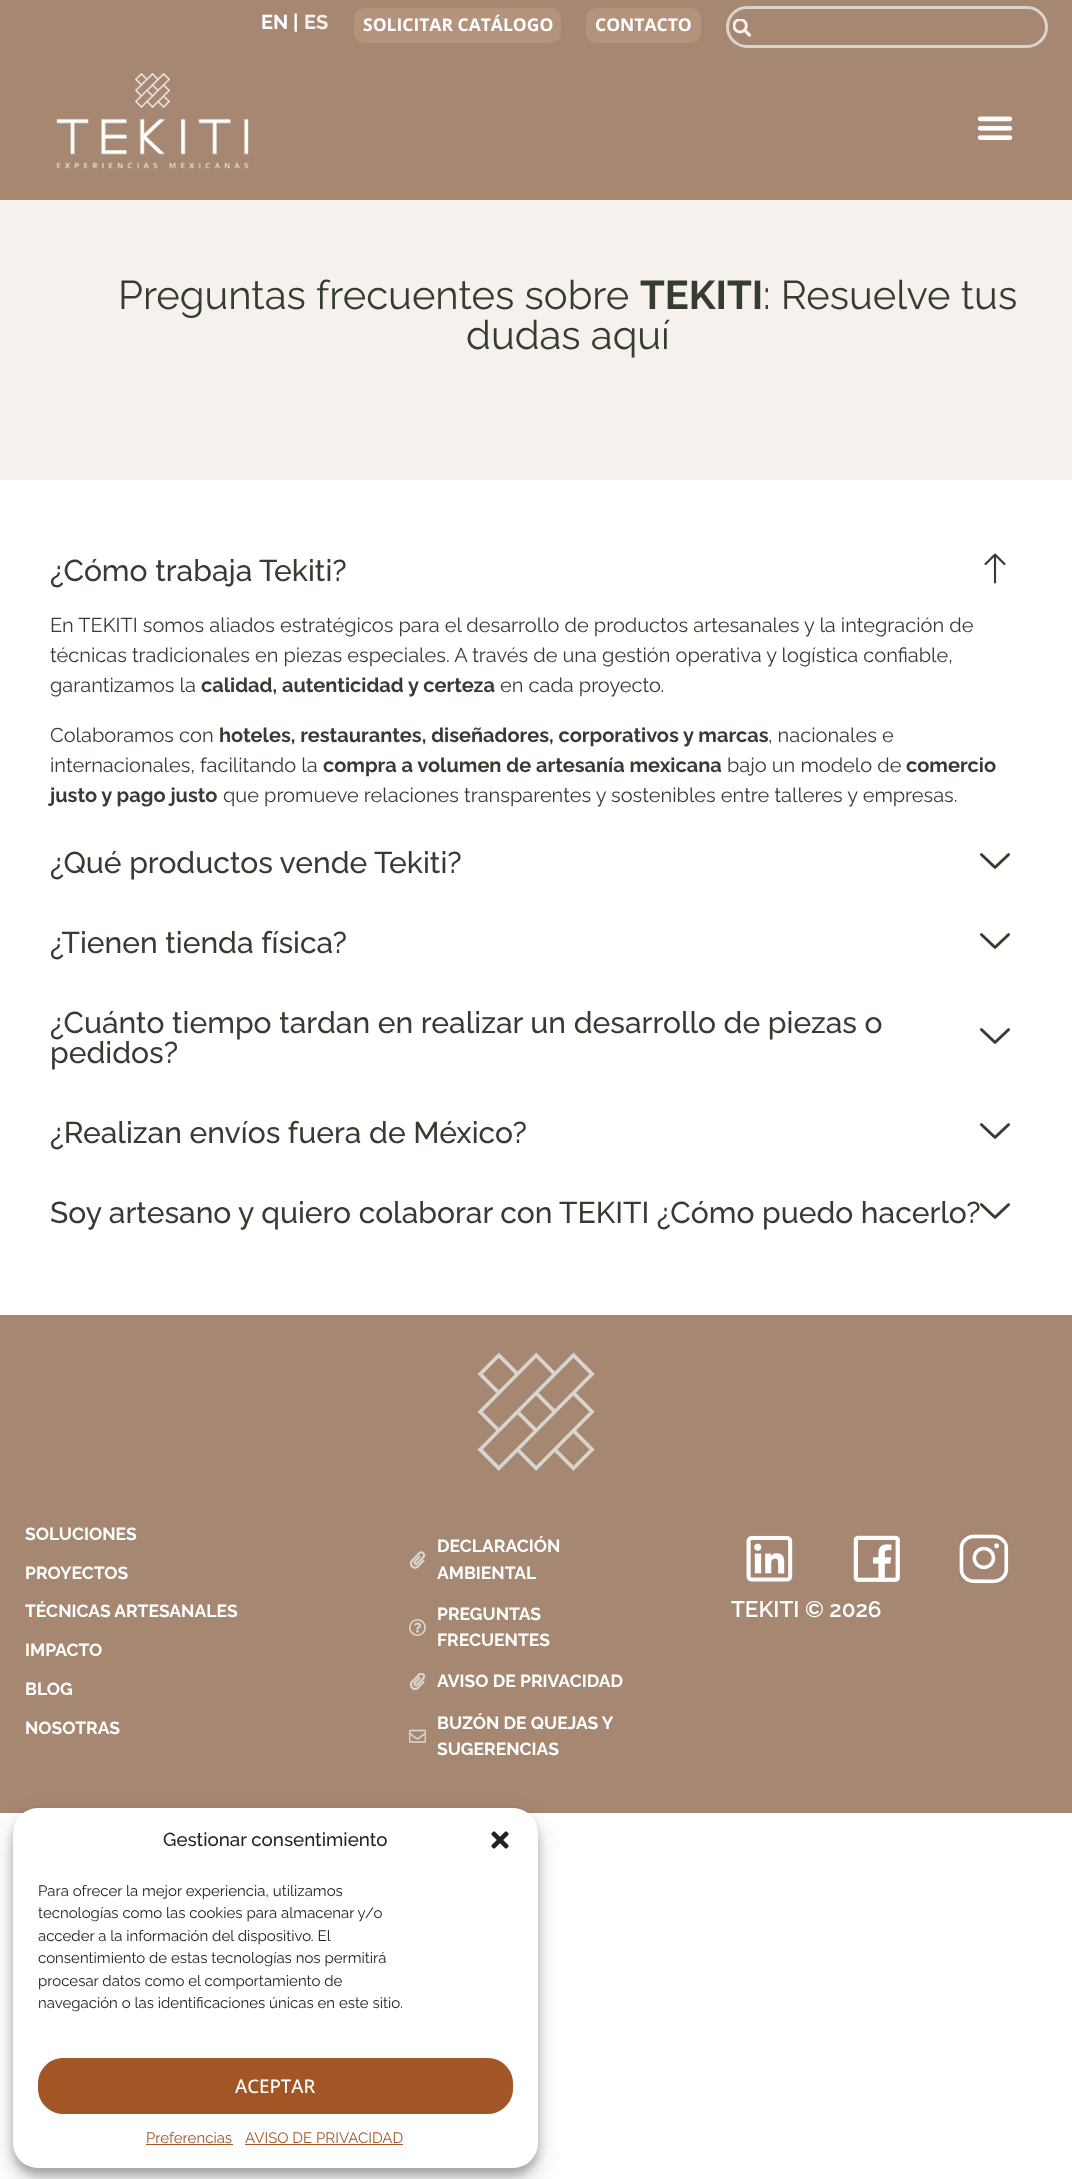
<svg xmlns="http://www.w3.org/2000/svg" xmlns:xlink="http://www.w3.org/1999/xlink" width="1072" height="2179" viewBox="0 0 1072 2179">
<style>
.cls-1{font:bold 20px Raleway;fill:#ffffff}
.cls-2{font:bold 20px Raleway;fill:#f6f1ed}
.cls-3{font:bold 17.5px Open Sans;fill:#ffffff}
.cls-4{font:40px Raleway;fill:#353d30}
.cls-5{font:bold 40px Raleway;fill:#353d30}
.cls-6{font:500 30px Raleway;fill:#353d30}
.cls-7{font:20px Raleway;fill:#353d30}
.cls-8{font:bold 20px Raleway;fill:#353d30}
.cls-9{font:bold 17.5px Raleway;fill:#ffffff}
.cls-10{font:600 22.5px Raleway;fill:#ffffff}
.cls-11{font:500 18.75px Raleway;fill:#222222}
.cls-12{font:15px Raleway;fill:#222222}
.cls-13{font:500 18.75px Open Sans;fill:#ffffff}
.cls-14{font:15px Raleway;fill:#a35625}
</style>
<rect width="100%" height="100%" fill="#ffffff"/>
<rect fill="#a58772" x="0" y="0" width="1072" height="200"/>
<image xlink:href="image0.png" x="56" y="73" width="193" height="96"/>
<image xlink:href="image1.png" x="977" y="116" width="36" height="24"/>
<rect fill="#b4937c" x="354" y="8" width="207" height="35" rx="10"/>
<rect fill="#b4937c" x="586" y="8" width="115" height="35" rx="10"/>
<rect fill="none" stroke="#dbd4cd" stroke-width="3" x="727.5" y="7.5" width="319" height="39" rx="19.5"/>
<image xlink:href="image2.png" x="733" y="19" width="18" height="18"/>
<rect fill="#f6f1ed" x="0" y="200" width="1072" height="280"/>
<image xlink:href="image3.png" x="984" y="553" width="22" height="31"/>
<image xlink:href="image4.png" x="980" y="853" width="30" height="16"/>
<image xlink:href="image4.png" x="980" y="933" width="30" height="16"/>
<image xlink:href="image4.png" x="980" y="1028" width="30" height="16"/>
<image xlink:href="image4.png" x="980" y="1123" width="30" height="16"/>
<image xlink:href="image4.png" x="980" y="1203" width="30" height="16"/>
<rect fill="#a58772" x="0" y="1315" width="1072" height="498"/>
<image xlink:href="image5.png" x="477" y="1352" width="118" height="120"/>
<image xlink:href="image6.png" x="409" y="1551" width="17" height="18"/>
<image xlink:href="image7.png" x="409" y="1619" width="17" height="17"/>
<image xlink:href="image8.png" x="409" y="1673" width="17" height="17"/>
<image xlink:href="image9.png" x="409" y="1729" width="17" height="14"/>
<image xlink:href="image10.png" x="746" y="1535" width="47" height="47"/>
<image xlink:href="image11.png" x="853" y="1535" width="47" height="47"/>
<image xlink:href="image12.png" x="959" y="1534" width="50" height="50"/>
<rect fill="#000000" fill-opacity="0.23" filter="blur(4px)" x="13" y="1815" width="525" height="360" rx="25"/>
<rect fill="#000000" fill-opacity="0.19" filter="blur(12.5px)" x="13" y="1820" width="525" height="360" rx="25"/>
<rect fill="#ffffff" x="13" y="1808" width="525" height="360" rx="25"/>
<image xlink:href="image13.png" x="491" y="1831" width="18" height="18"/>
<rect fill="#a35625" stroke="#a35625" x="38.5" y="2058.5" width="474" height="55" rx="24.5"/>
<rect fill="#a35625" x="146" y="2144" width="87" height="1"/>
<rect fill="#a35625" x="245" y="2144" width="158" height="1"/>
<text class="cls-1" x="261" y="29">EN |</text>
<text class="cls-2" x="304" y="29">ES</text>
<text class="cls-3" x="363" y="31">SOLICITAR CATÁLOGO</text>
<text class="cls-3" x="595" y="31">CONTACTO</text>
<text class="cls-4" x="118" y="309">Preguntas frecuentes sobre</text>
<text class="cls-5" x="640" y="309">TEKITI</text>
<text class="cls-4" x="763" y="309">: Resuelve tus</text>
<text class="cls-4" x="466" y="349">dudas aquí</text>
<text class="cls-6" x="50" y="581">¿Cómo trabaja Tekiti?</text>
<text class="cls-7"><tspan x="50" y="632">En TEKITI somos aliados estratégicos para el desarrollo de productos artesanales y la integración de</tspan><tspan x="50" y="662">técnicas tradicionales en piezas especiales. A través de una gestión operativa y logística confiable,</tspan><tspan x="50" y="692">garantizamos la</tspan></text>
<text class="cls-8" x="201" y="692">calidad, autenticidad y certeza</text>
<text class="cls-7" x="500" y="692">en cada proyecto.</text>
<text class="cls-7" x="50" y="742">Colaboramos con</text>
<text class="cls-8" x="219" y="742">hoteles, restaurantes, diseñadores, corporativos y marcas</text>
<text class="cls-7" x="768" y="742">, nacionales e</text>
<text class="cls-7" x="50" y="772">internacionales, facilitando la</text>
<text class="cls-8" x="323" y="772">compra a volumen de artesanía mexicana</text>
<text class="cls-7" x="727" y="772">bajo un modelo de</text>
<text class="cls-8" x="906" y="772">comercio</text>
<text class="cls-8" x="50" y="802">justo y pago justo</text>
<text class="cls-7" x="223" y="802">que promueve relaciones transparentes y sostenibles entre talleres y empresas.</text>
<text class="cls-6" x="50" y="873">¿Qué productos vende Tekiti?</text>
<text class="cls-6" x="50" y="953">¿Tienen tienda física?</text>
<text class="cls-6"><tspan x="50" y="1033">¿Cuánto tiempo tardan en realizar un desarrollo de piezas o</tspan><tspan x="50" y="1063">pedidos?</tspan></text>
<text class="cls-6" x="50" y="1143">¿Realizan envíos fuera de México?</text>
<text class="cls-6" x="50" y="1223">Soy artesano y quiero colaborar con TEKITI ¿Cómo puedo hacerlo?</text>
<text class="cls-9" x="25" y="1540">SOLUCIONES</text>
<text class="cls-9" x="25" y="1579">PROYECTOS</text>
<text class="cls-9" x="25" y="1617">TÉCNICAS ARTESANALES</text>
<text class="cls-9" x="25" y="1656">IMPACTO</text>
<text class="cls-9" x="25" y="1695">BLOG</text>
<text class="cls-9" x="25" y="1734">NOSOTRAS</text>
<text class="cls-9"><tspan x="437" y="1552">DECLARACIÓN</tspan><tspan x="437" y="1579">AMBIENTAL</tspan></text>
<text class="cls-9"><tspan x="437" y="1620">PREGUNTAS</tspan><tspan x="437" y="1646">FRECUENTES</tspan></text>
<text class="cls-9" x="437" y="1687">AVISO DE PRIVACIDAD</text>
<text class="cls-9"><tspan x="437" y="1729">BUZÓN DE QUEJAS Y</tspan><tspan x="437" y="1755">SUGERENCIAS</tspan></text>
<text class="cls-10" x="731" y="1617">TEKITI © 2026</text>
<text class="cls-11" x="163" y="1846">Gestionar consentimiento</text>
<text class="cls-12"><tspan x="38" y="1896">Para ofrecer la mejor experiencia, utilizamos</tspan><tspan x="38" y="1918">tecnologías como las cookies para almacenar y/o</tspan><tspan x="38" y="1941">acceder a la información del dispositivo. El</tspan><tspan x="38" y="1963">consentimiento de estas tecnologías nos permitirá</tspan><tspan x="38" y="1986">procesar datos como el comportamiento de</tspan><tspan x="38" y="2008">navegación o las identificaciones únicas en este sitio.</tspan></text>
<text class="cls-13" x="235" y="2093">ACEPTAR</text>
<text class="cls-14" x="146" y="2143">Preferencias</text>
<text class="cls-14" x="245" y="2143">AVISO DE PRIVACIDAD</text>
</svg>
